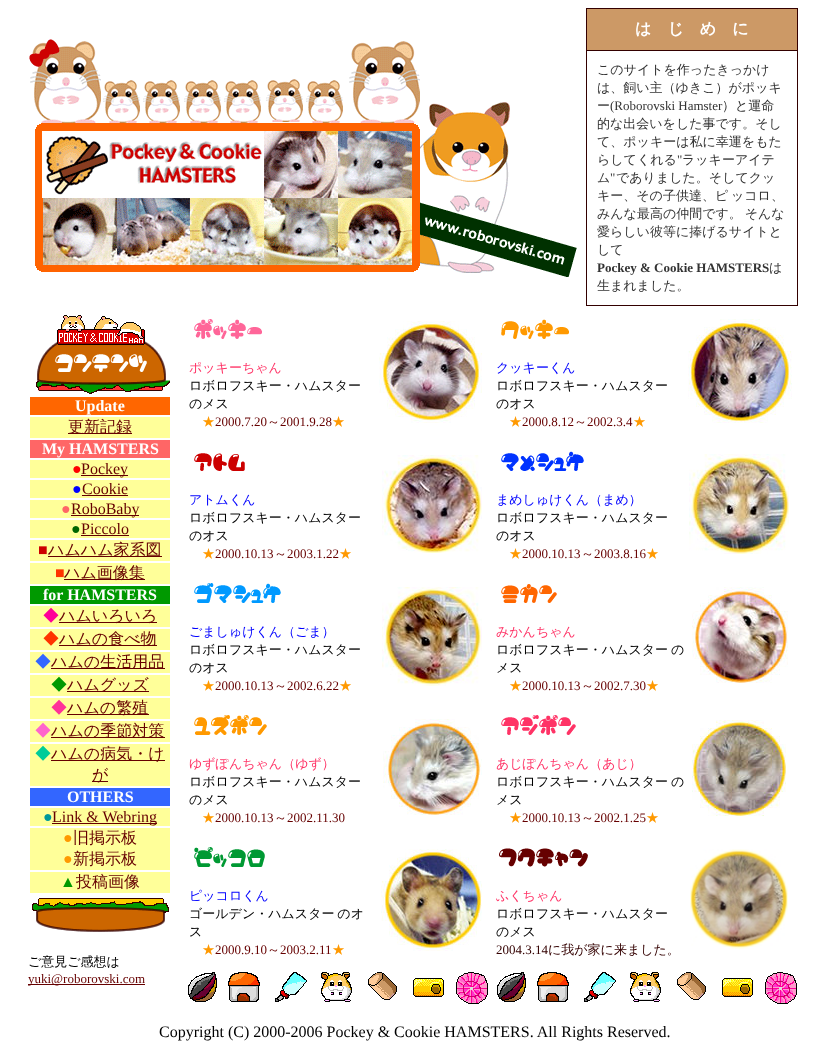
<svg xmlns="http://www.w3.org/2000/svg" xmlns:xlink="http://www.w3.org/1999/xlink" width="829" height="1049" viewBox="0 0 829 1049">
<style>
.cls-1{font:bold 16px WenQuanYi Zen Hei;fill:#ffffff}
.cls-2{font:500 13px WenQuanYi Zen Hei;fill:#333333}
.cls-3{font:13px Liberation Serif;fill:#333333}
.cls-4{font:bold 13px Liberation Serif;fill:#333333}
.cls-5{font:bold 16px Liberation Serif;fill:#ffffff}
.cls-6{font:500 16px WenQuanYi Zen Hei;fill:#660000}
.cls-7{font:16px Liberation Serif;fill:#ff0000}
.cls-8{font:16px Liberation Serif;fill:#660000}
.cls-9{font:16px Liberation Serif;fill:#0000ff}
.cls-10{font:16px Liberation Serif;fill:#ff6666}
.cls-11{font:16px Liberation Serif;fill:#006600}
.cls-12{font:16px Liberation Serif;fill:#cc0000}
.cls-13{font:16px Liberation Serif;fill:#ff3300}
.cls-14{font:500 16px WenQuanYi Zen Hei;fill:#ff0099}
.cls-15{font:500 16px WenQuanYi Zen Hei;fill:#ff3300}
.cls-16{font:500 16px WenQuanYi Zen Hei;fill:#3366ff}
.cls-17{font:500 16px WenQuanYi Zen Hei;fill:#009900}
.cls-18{font:500 16px WenQuanYi Zen Hei;fill:#ff3399}
.cls-19{font:500 16px WenQuanYi Zen Hei;fill:#ff66cc}
.cls-20{font:500 16px WenQuanYi Zen Hei;fill:#00cc99}
.cls-21{font:16px Liberation Serif;fill:#009999}
.cls-22{font:16px Liberation Serif;fill:#ff9900}
.cls-23{font:16px Liberation Serif;fill:#009900}
.cls-24{font:500 13px WenQuanYi Zen Hei;fill:#000000}
.cls-25{font:13px Liberation Serif;fill:#660000}
.cls-26{font:500 13px WenQuanYi Zen Hei;fill:#ff3366}
.cls-27{font:500 13px WenQuanYi Zen Hei;fill:#ff9900}
.cls-28{font:500 13px WenQuanYi Zen Hei;fill:#660000}
.cls-29{font:500 13px WenQuanYi Zen Hei;fill:#0000ff}
.cls-30{font:13px Liberation Serif;fill:#330000}
.cls-31{font:500 13px WenQuanYi Zen Hei;fill:#330000}
.cls-32{font:16px Liberation Serif;fill:#000000}
</style>
<rect width="100%" height="100%" fill="#ffffff"/>
<image xlink:href="image0.png" x="29" y="39" width="548" height="238"/>
<rect fill="#330000" x="586" y="8" width="212" height="298"/>
<rect fill="#cc9966" x="587" y="9" width="210" height="41"/>
<rect fill="#ffffff" x="587" y="51" width="210" height="254"/>
<image xlink:href="image1.png" x="36" y="315" width="134" height="79"/>
<rect fill="#ff6600" x="30" y="397" width="140" height="18"/>
<rect fill="#ffff99" x="30" y="417" width="140" height="21"/>
<rect fill="#660000" x="68" y="433" width="64" height="1"/>
<rect fill="#ff6666" x="30" y="440" width="140" height="18"/>
<rect fill="#ffff99" x="30" y="460" width="140" height="18"/>
<rect fill="#660000" x="81" y="475" width="47" height="1"/>
<rect fill="#ffff99" x="30" y="480" width="140" height="18"/>
<rect fill="#660000" x="82" y="495" width="46" height="1"/>
<rect fill="#ffff99" x="30" y="500" width="140" height="18"/>
<rect fill="#660000" x="71" y="515" width="68" height="1"/>
<rect fill="#ffff99" x="30" y="520" width="140" height="18"/>
<rect fill="#660000" x="81" y="535" width="48" height="1"/>
<rect fill="#ffff99" x="30" y="540" width="140" height="21"/>
<rect fill="#660000" x="48" y="556" width="114" height="1"/>
<rect fill="#ffff99" x="30" y="563" width="140" height="21"/>
<rect fill="#660000" x="64" y="579" width="81" height="1"/>
<rect fill="#009900" x="30" y="586" width="140" height="18"/>
<rect fill="#ffff99" x="30" y="606" width="140" height="21"/>
<rect fill="#660000" x="59" y="622" width="98" height="1"/>
<rect fill="#ffff99" x="30" y="629" width="140" height="21"/>
<rect fill="#660000" x="59" y="645" width="98" height="1"/>
<rect fill="#ffff99" x="30" y="652" width="140" height="21"/>
<rect fill="#660000" x="51" y="668" width="114" height="1"/>
<rect fill="#ffff99" x="30" y="675" width="140" height="21"/>
<rect fill="#660000" x="67" y="691" width="82" height="1"/>
<rect fill="#ffff99" x="30" y="698" width="140" height="21"/>
<rect fill="#660000" x="67" y="714" width="82" height="1"/>
<rect fill="#ffff99" x="30" y="721" width="140" height="21"/>
<rect fill="#660000" x="51" y="737" width="114" height="1"/>
<rect fill="#ffff99" x="30" y="744" width="140" height="42"/>
<rect fill="#660000" x="51" y="760" width="114" height="1"/>
<rect fill="#660000" x="92" y="781" width="16" height="1"/>
<rect fill="#3366ff" x="30" y="788" width="140" height="18"/>
<rect fill="#ffff99" x="30" y="808" width="140" height="18"/>
<rect fill="#660000" x="52" y="823" width="105" height="1"/>
<rect fill="#ffff99" x="30" y="828" width="140" height="42"/>
<rect fill="#ffff99" x="30" y="872" width="140" height="21"/>
<image xlink:href="image2.png" x="32" y="898" width="137" height="34"/>
<rect fill="#660000" x="28" y="984" width="117" height="1"/>
<image xlink:href="image3.png" x="194" y="319" width="68" height="20"/>
<image xlink:href="image4.png" x="379" y="321" width="103" height="102"/>
<image xlink:href="image5.png" x="501" y="319" width="68" height="20"/>
<image xlink:href="image6.png" x="688" y="319" width="104" height="104"/>
<image xlink:href="image7.png" x="194" y="453" width="51" height="18"/>
<image xlink:href="image8.png" x="382" y="455" width="100" height="98"/>
<image xlink:href="image9.png" x="501" y="451" width="83" height="20"/>
<image xlink:href="image10.png" x="689" y="454" width="100" height="100"/>
<image xlink:href="image11.png" x="194" y="583" width="87" height="20"/>
<image xlink:href="image12.png" x="382" y="587" width="100" height="99"/>
<image xlink:href="image13.png" x="501" y="584" width="56" height="19"/>
<image xlink:href="image14.png" x="692" y="587" width="96" height="96"/>
<image xlink:href="image15.png" x="194" y="715" width="73" height="20"/>
<image xlink:href="image16.png" x="383" y="719" width="99" height="96"/>
<image xlink:href="image17.png" x="501" y="715" width="75" height="20"/>
<image xlink:href="image18.png" x="692" y="720" width="94" height="96"/>
<image xlink:href="image19.png" x="194" y="847" width="71" height="20"/>
<image xlink:href="image20.png" x="381" y="849" width="101" height="102"/>
<image xlink:href="image21.png" x="499" y="848" width="89" height="19"/>
<image xlink:href="image22.png" x="690" y="849" width="98" height="100"/>
<image xlink:href="image23.png" x="188" y="972" width="300" height="32"/>
<image xlink:href="image23.png" x="497" y="972" width="300" height="32"/>
<text class="cls-1" x="635" y="34">は　じ　め　に</text>
<text class="cls-2"><tspan x="597" y="74">このサイトを作ったきっかけ</tspan><tspan x="597" y="92">は、飼い主（ゆきこ）がポッキ</tspan><tspan x="597" y="110">ー</tspan></text>
<text class="cls-3" x="610" y="110">(Roborovski Hamster</text>
<text class="cls-2" x="722" y="110">）と運命</text>
<text class="cls-2"><tspan x="597" y="128">的な出会いをした事です。そし</tspan><tspan x="597" y="146">て、ポッキーは私に幸運をもた</tspan><tspan x="597" y="164">らしてくれる</tspan></text>
<text class="cls-3" x="677" y="164">"</text>
<text class="cls-2" x="682" y="164">ラッキーアイテ</text>
<text class="cls-2" x="597" y="182">ム</text>
<text class="cls-3" x="610" y="182">"</text>
<text class="cls-2" x="616" y="182">でありました。そしてクッ</text>
<text class="cls-2" x="597" y="200">キー、その子供達、ピ</text>
<text class="cls-2" x="731" y="200">ッコロ、</text>
<text class="cls-2"><tspan x="597" y="218" word-spacing="-1">みんな最高の仲間です。 そんな</tspan><tspan x="597" y="236">愛らしい彼等に捧げるサイトと</tspan><tspan x="597" y="254">して</tspan></text>
<text class="cls-4" x="597" y="272">Pockey &amp; Cookie HAMSTERS</text>
<text class="cls-2" x="769" y="272">は</text>
<text class="cls-2" x="597" y="290">生まれました。</text>
<text class="cls-5" x="75" y="411">Update</text>
<text class="cls-6" x="68" y="432">更新記録</text>
<text class="cls-5" x="42" y="454">My HAMSTERS</text>
<text class="cls-7" x="72" y="474">●</text>
<text class="cls-8" x="81" y="474">Pockey</text>
<text class="cls-9" x="72" y="494">●</text>
<text class="cls-8" x="82" y="494">Cookie</text>
<text class="cls-10" x="61" y="514">●</text>
<text class="cls-8" x="71" y="514">RoboBaby</text>
<text class="cls-11" x="71" y="534">●</text>
<text class="cls-8" x="81" y="534">Piccolo</text>
<text class="cls-12" x="38" y="555">■</text>
<text class="cls-6" x="48" y="555">ハムハム家系図</text>
<text class="cls-13" x="55" y="578">■</text>
<text class="cls-6" x="64" y="578">ハム画像集</text>
<text class="cls-5" x="43" y="600">for HAMSTERS</text>
<text class="cls-14" x="43" y="621">◆</text>
<text class="cls-6" x="59" y="621">ハムいろいろ</text>
<text class="cls-15" x="43" y="644">◆</text>
<text class="cls-6" x="59" y="644">ハムの食べ物</text>
<text class="cls-16" x="35" y="667">◆</text>
<text class="cls-6" x="51" y="667">ハムの生活用品</text>
<text class="cls-17" x="51" y="690">◆</text>
<text class="cls-6" x="67" y="690">ハムグッズ</text>
<text class="cls-18" x="51" y="713">◆</text>
<text class="cls-6" x="67" y="713">ハムの繁殖</text>
<text class="cls-19" x="35" y="736">◆</text>
<text class="cls-6" x="51" y="736">ハムの季節対策</text>
<text class="cls-20" x="35" y="759">◆</text>
<text class="cls-6" x="51" y="759">ハムの病気・け</text>
<text class="cls-6" x="92" y="780">が</text>
<text class="cls-5" x="67" y="802">OTHERS</text>
<text class="cls-21" x="43" y="822">●</text>
<text class="cls-8" x="52" y="822">Link &amp; Webring</text>
<text class="cls-22" x="63" y="843">●</text>
<text class="cls-6" x="73" y="843">旧掲示板</text>
<text class="cls-22" x="63" y="864">●</text>
<text class="cls-6" x="73" y="864">新掲示板</text>
<text class="cls-23" x="60" y="887">▲</text>
<text class="cls-6" x="76" y="887">投稿画像</text>
<text class="cls-24" x="28" y="966">ご意見ご感想は</text>
<text class="cls-25" x="28" y="983">yuki@roborovski.com</text>
<text class="cls-26" x="189" y="372">ポッキーちゃん</text>
<text class="cls-24"><tspan x="189" y="390">ロボロフスキー・ハムスター</tspan><tspan x="189" y="408">のメス</tspan></text>
<text class="cls-27" x="202" y="426">★</text>
<text class="cls-25" x="215" y="426">2000.7.20</text>
<text class="cls-28" x="267" y="426">～</text>
<text class="cls-25" x="280" y="426">2001.9.28</text>
<text class="cls-27" x="332" y="426">★</text>
<text class="cls-29" x="496" y="372">クッキーくん</text>
<text class="cls-24"><tspan x="496" y="390">ロボロフスキー・ハムスター</tspan><tspan x="496" y="408">のオス</tspan></text>
<text class="cls-27" x="509" y="426">★</text>
<text class="cls-25" x="522" y="426">2000.8.12</text>
<text class="cls-28" x="574" y="426">～</text>
<text class="cls-25" x="587" y="426">2002.3.4</text>
<text class="cls-27" x="633" y="426">★</text>
<text class="cls-29" x="189" y="504">アトムくん</text>
<text class="cls-24"><tspan x="189" y="522">ロボロフスキー・ハムスター</tspan><tspan x="189" y="540">のオス</tspan></text>
<text class="cls-27" x="202" y="558">★</text>
<text class="cls-25" x="215" y="558">2000.10.13</text>
<text class="cls-28" x="274" y="558">～</text>
<text class="cls-25" x="287" y="558">2003.1.22</text>
<text class="cls-27" x="339" y="558">★</text>
<text class="cls-29" x="496" y="504">まめしゅけくん（まめ）</text>
<text class="cls-24"><tspan x="496" y="522">ロボロフスキー・ハムスター</tspan><tspan x="496" y="540">のオス</tspan></text>
<text class="cls-27" x="509" y="558">★</text>
<text class="cls-25" x="522" y="558">2000.10.13</text>
<text class="cls-28" x="581" y="558">～</text>
<text class="cls-25" x="594" y="558">2003.8.16</text>
<text class="cls-27" x="646" y="558">★</text>
<text class="cls-29" x="189" y="636">ごましゅけくん（ごま）</text>
<text class="cls-24"><tspan x="189" y="654">ロボロフスキー・ハムスター</tspan><tspan x="189" y="672">のオス</tspan></text>
<text class="cls-27" x="202" y="690">★</text>
<text class="cls-25" x="215" y="690">2000.10.13</text>
<text class="cls-28" x="274" y="690">～</text>
<text class="cls-25" x="287" y="690">2002.6.22</text>
<text class="cls-27" x="339" y="690">★</text>
<text class="cls-26" x="496" y="636">みかんちゃん</text>
<text class="cls-24"><tspan x="496" y="654" word-spacing="-1">ロボロフスキー・ハムスター の</tspan><tspan x="496" y="672">メス</tspan></text>
<text class="cls-27" x="509" y="690">★</text>
<text class="cls-25" x="522" y="690">2000.10.13</text>
<text class="cls-28" x="581" y="690">～</text>
<text class="cls-25" x="594" y="690">2002.7.30</text>
<text class="cls-27" x="646" y="690">★</text>
<text class="cls-26" x="189" y="768">ゆずぽんちゃん（ゆず）</text>
<text class="cls-24"><tspan x="189" y="786">ロボロフスキー・ハムスター</tspan><tspan x="189" y="804">のメス</tspan></text>
<text class="cls-27" x="202" y="822">★</text>
<text class="cls-25" x="215" y="822">2000.10.13</text>
<text class="cls-28" x="274" y="822">～</text>
<text class="cls-25" x="287" y="822">2002.11.30</text>
<text class="cls-26" x="496" y="768">あじぽんちゃん（あじ）</text>
<text class="cls-24"><tspan x="496" y="786" word-spacing="-1">ロボロフスキー・ハムスター の</tspan><tspan x="496" y="804">メス</tspan></text>
<text class="cls-27" x="509" y="822">★</text>
<text class="cls-25" x="522" y="822">2000.10.13</text>
<text class="cls-28" x="581" y="822">～</text>
<text class="cls-25" x="594" y="822">2002.1.25</text>
<text class="cls-27" x="646" y="822">★</text>
<text class="cls-29" x="189" y="900">ピッコロくん</text>
<text class="cls-24"><tspan x="189" y="918" word-spacing="-1">ゴールデン・ハムスター のオ</tspan><tspan x="189" y="936">ス</tspan></text>
<text class="cls-27" x="202" y="954">★</text>
<text class="cls-25" x="215" y="954">2000.9.10</text>
<text class="cls-28" x="267" y="954">～</text>
<text class="cls-25" x="280" y="954">2003.2.11</text>
<text class="cls-27" x="332" y="954">★</text>
<text class="cls-26" x="496" y="900">ふくちゃん</text>
<text class="cls-24"><tspan x="496" y="918">ロボロフスキー・ハムスター</tspan><tspan x="496" y="936">のメス</tspan></text>
<text class="cls-30" x="496" y="954">2004.3.14</text>
<text class="cls-31" x="548" y="954">に我が家に来ました。</text>
<text class="cls-32" x="159" y="1037">Copyright (C) 2000-2006 Pockey &amp; Cookie HAMSTERS. All Rights Reserved.</text>
</svg>
